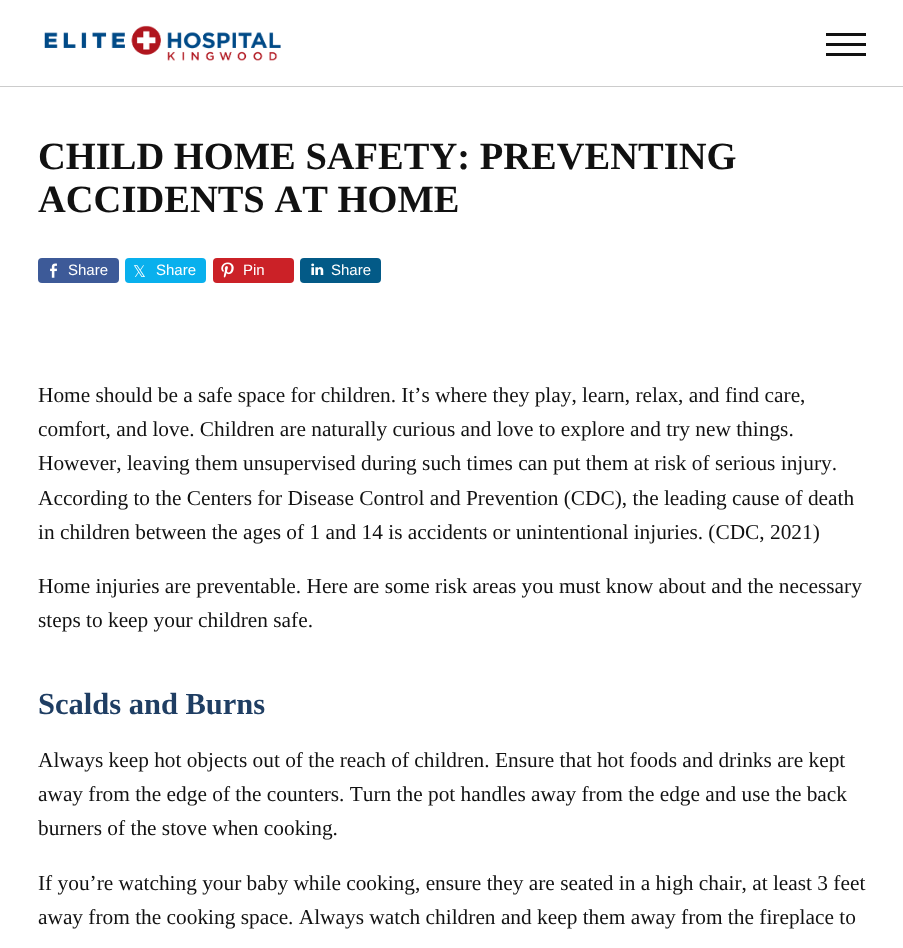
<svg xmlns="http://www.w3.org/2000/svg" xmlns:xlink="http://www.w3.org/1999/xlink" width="903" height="948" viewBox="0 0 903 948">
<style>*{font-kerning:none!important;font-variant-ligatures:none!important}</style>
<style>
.cls-1{font:bold 38.5px Liberation Serif;fill:#111111}
.cls-2{font:15px Liberation Sans;fill:#ffffff}
.cls-3{font:16px DejaVu Sans;fill:#ffffff}
.cls-4{font:21.35px Liberation Serif;fill:#111111}
.cls-5{font:bold 30.5px Liberation Serif;fill:#1f3e63}
</style>
<rect width="100%" height="100%" fill="#ffffff"/>
<rect fill="#cccccc" x="0" y="86" width="903" height="1"/>
<image xlink:href="image0.png" x="44" y="25" width="237" height="36"/>
<rect fill="#111111" x="826" y="43" width="40" height="3"/>
<rect fill="#111111" x="826" y="33" width="40" height="3"/>
<rect fill="#111111" x="826" y="53" width="40" height="3"/>
<rect fill="#3d5a98" x="38" y="258" width="81" height="25" rx="4"/>
<image xlink:href="image1.png" x="50" y="263" width="7" height="15"/>
<rect fill="#09b0ed" x="125" y="258" width="81" height="25" rx="4"/>
<rect fill="#cb2127" x="213" y="258" width="81" height="25" rx="4"/>
<image xlink:href="image2.png" x="221" y="262" width="13" height="16"/>
<rect fill="#035a87" x="300" y="258" width="81" height="25" rx="4"/>
<image xlink:href="image3.png" x="311" y="263" width="13" height="12"/>
<text class="cls-1"><tspan x="38" y="169">CHILD HOME SAFETY: PREVENTING</tspan><tspan x="38" y="212">ACCIDENTS AT HOME</tspan></text>
<text class="cls-2" x="68" y="275">Share</text>
<text class="cls-3" x="133" y="277">𝕏</text>
<text class="cls-2" x="156" y="275">Share</text>
<text class="cls-2" x="243" y="275">Pin</text>
<text class="cls-2" x="331" y="275">Share</text>
<text class="cls-4"><tspan x="38" y="402">Home should be a safe space for children. It’s where they play, learn, relax, and find care,</tspan><tspan x="38" y="436">comfort, and love. Children are naturally curious and love to explore and try new things.</tspan><tspan x="38" y="470">However, leaving them unsupervised during such times can put them at risk of serious injury.</tspan><tspan x="38" y="505">According to the Centers for Disease Control and Prevention (CDC), the leading cause of death</tspan><tspan x="38" y="539">in children between the ages of 1 and 14 is accidents or unintentional injuries. (CDC, 2021)</tspan></text>
<text class="cls-4"><tspan x="38" y="593">Home injuries are preventable. Here are some risk areas you must know about and the necessary</tspan><tspan x="38" y="627">steps to keep your children safe.</tspan></text>
<text class="cls-5" x="38" y="714">Scalds and Burns</text>
<text class="cls-4"><tspan x="38" y="767">Always keep hot objects out of the reach of children. Ensure that hot foods and drinks are kept</tspan><tspan x="38" y="801">away from the edge of the counters. Turn the pot handles away from the edge and use the back</tspan><tspan x="38" y="835">burners of the stove when cooking.</tspan></text>
<text class="cls-4"><tspan x="38" y="890">If you’re watching your baby while cooking, ensure they are seated in a high chair, at least 3 feet</tspan><tspan x="38" y="924">away from the cooking space. Always watch children and keep them away from the fireplace to</tspan></text>
</svg>
